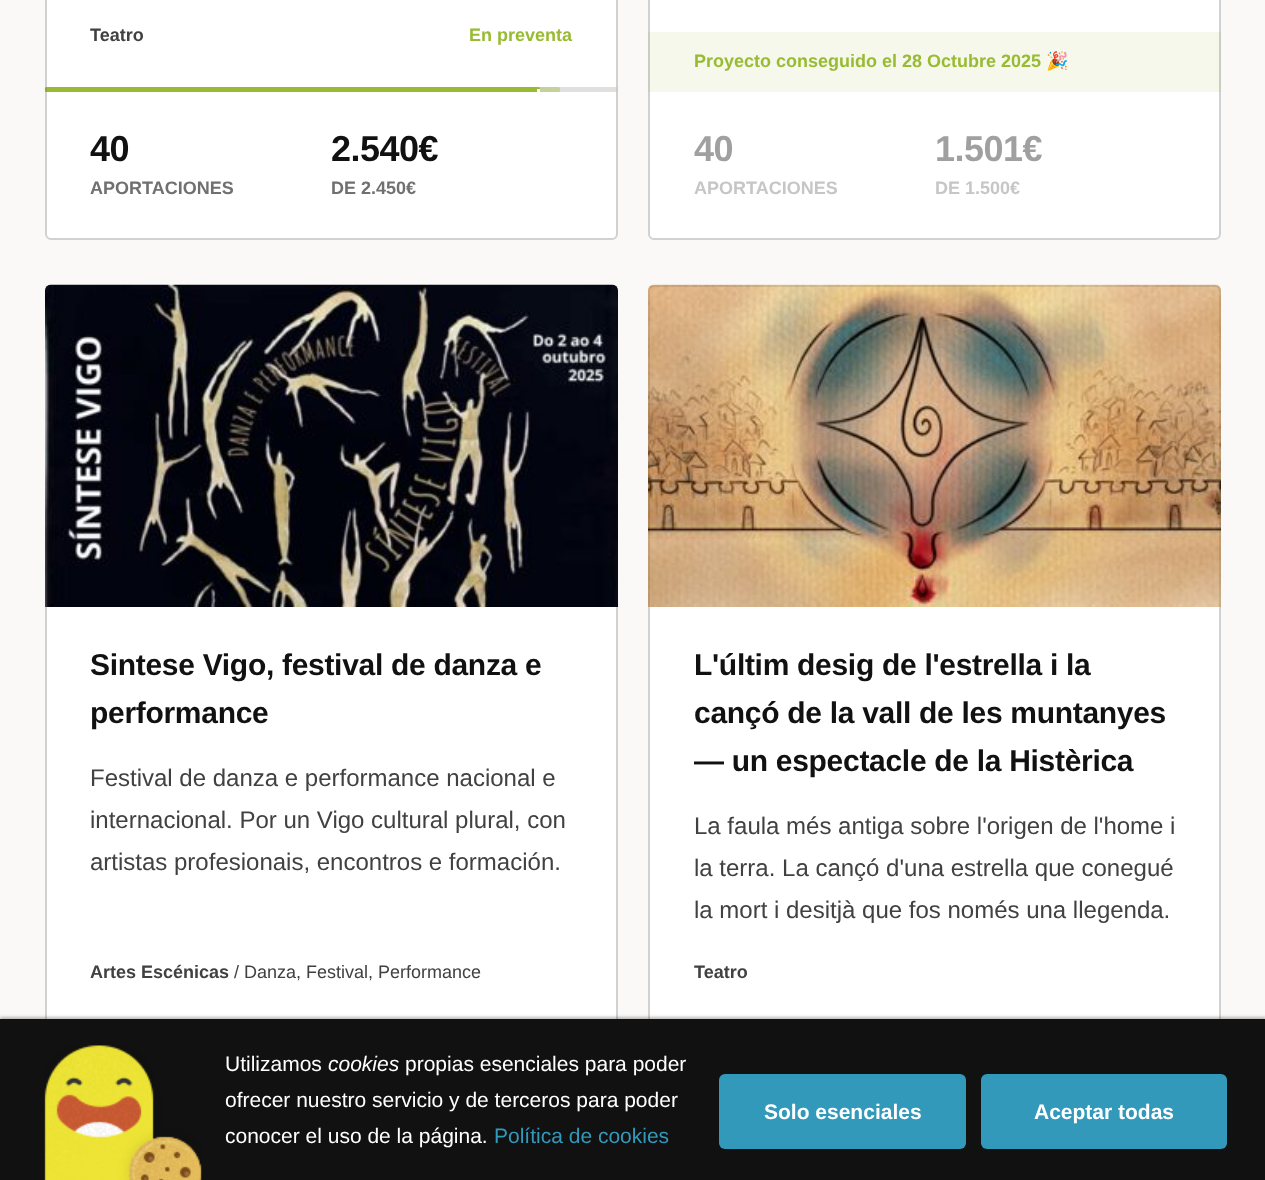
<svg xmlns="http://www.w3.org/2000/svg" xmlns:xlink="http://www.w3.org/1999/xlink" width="1265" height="1180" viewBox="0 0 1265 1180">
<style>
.cls-1{font:bold 18px Liberation Sans;fill:#414141}
.cls-2{font:bold 18px Liberation Sans;fill:#99bb33}
.cls-3{font:bold 36px Liberation Sans;letter-spacing:-0.5px;fill:#111111}
.cls-4{font:bold 18px Liberation Sans;fill:#707070}
.cls-5{font:bold 18px Noto Color Emoji;fill:#99bb33}
.cls-6{font:bold 36px Liberation Sans;letter-spacing:-0.5px;fill:#a0a0a0}
.cls-7{font:bold 18px Liberation Sans;fill:#c6c6c6}
.cls-8{font:bold 30px Liberation Sans;letter-spacing:-0.3px;fill:#111111}
.cls-9{font:24px Liberation Sans;fill:#414141}
.cls-10{font:18px Liberation Sans;fill:#414141}
.cls-11{font:21px Liberation Sans;fill:#ffffff}
.cls-12{font:italic 21px Liberation Sans;fill:#ffffff}
.cls-13{font:21px Liberation Sans;fill:#3399bb}
.cls-14{font:bold 21px Liberation Sans;fill:#ffffff}
</style>
<rect width="100%" height="100%" fill="#faf9f7"/>
<rect fill="#ffffff" stroke="#e7e7e7" stroke-width="2" x="46" y="-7" width="571" height="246" rx="5"/>
<rect fill="#e1e0de" x="45" y="87" width="573" height="5"/>
<rect fill="#c4d19a" x="45" y="87" width="515" height="5" rx="1.5"/>
<rect fill="#99bb33" x="45" y="87" width="495" height="5" rx="1.5"/>
<rect fill="#ffffff" x="537" y="89" width="3" height="3"/>
<rect fill="none" stroke="#111111" stroke-opacity="0.1" stroke-width="2" x="46" y="-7" width="571" height="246" rx="5"/>
<rect fill="#ffffff" stroke="#e7e7e7" stroke-width="2" x="649" y="-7" width="571" height="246" rx="5"/>
<rect fill="#99bb33" fill-opacity="0.1" x="648" y="32" width="573" height="60"/>
<rect fill="none" stroke="#111111" stroke-opacity="0.1" stroke-width="2" x="649" y="-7" width="571" height="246" rx="5"/>
<rect fill="#ffffff" stroke="#e7e7e7" stroke-width="2" x="46" y="286" width="571" height="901" rx="5"/>
<image xlink:href="image0.png" x="45" y="284" width="573" height="323"/>
<rect fill="none" stroke="#111111" stroke-opacity="0.1" stroke-width="2" x="46" y="286" width="571" height="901" rx="5"/>
<rect fill="#ffffff" stroke="#e7e7e7" stroke-width="2" x="649" y="286" width="571" height="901" rx="5"/>
<image xlink:href="image1.png" x="648" y="284" width="573" height="323"/>
<rect fill="none" stroke="#111111" stroke-opacity="0.1" stroke-width="2" x="649" y="286" width="571" height="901" rx="5"/>
<rect fill="#222222" fill-opacity="0.3" filter="blur(1.5px)" x="0" y="1017" width="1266" height="162"/>
<rect fill="#111111" x="0" y="1019" width="1265" height="161"/>
<image xlink:href="image2.png" x="44" y="1045" width="158" height="135"/>
<rect fill="#3399bb" x="719" y="1074" width="247" height="75" rx="6"/>
<rect fill="#3399bb" x="981" y="1074" width="246" height="75" rx="6"/>
<text class="cls-1" x="90" y="41">Teatro</text>
<text class="cls-2" x="469" y="41">En preventa</text>
<text class="cls-3" x="90" y="161">40</text>
<text class="cls-4" x="90" y="194">APORTACIONES</text>
<text class="cls-3" x="331" y="161">2.540€</text>
<text class="cls-4" x="331" y="194">DE 2.450€</text>
<text class="cls-2" x="694" y="67">Proyecto conseguido el 28 Octubre 2025</text>
<text class="cls-5" x="1046" y="67">🎉</text>
<text class="cls-6" x="694" y="161">40</text>
<text class="cls-7" x="694" y="194">APORTACIONES</text>
<text class="cls-6" x="935" y="161">1.501€</text>
<text class="cls-7" x="935" y="194">DE 1.500€</text>
<text class="cls-8"><tspan x="90" y="675">Sintese Vigo, festival de danza e</tspan><tspan x="90" y="723">performance</tspan></text>
<text class="cls-9"><tspan x="90" y="786">Festival de danza e performance nacional e</tspan><tspan x="90" y="828">internacional. Por un Vigo cultural plural, con</tspan><tspan x="90" y="870">artistas profesionais, encontros e formación.</tspan></text>
<text class="cls-1" x="90" y="978">Artes Escénicas</text>
<text class="cls-10" x="234" y="978">/ Danza, Festival, Performance</text>
<text class="cls-8"><tspan x="694" y="675">L'últim desig de l'estrella i la</tspan><tspan x="694" y="723">cançó de la vall de les muntanyes</tspan><tspan x="694" y="771">— un espectacle de la Histèrica</tspan></text>
<text class="cls-9"><tspan x="694" y="834">La faula més antiga sobre l'origen de l'home i</tspan><tspan x="694" y="876">la terra. La cançó d'una estrella que conegué</tspan><tspan x="694" y="918">la mort i desitjà que fos només una llegenda.</tspan></text>
<text class="cls-1" x="694" y="978">Teatro</text>
<text class="cls-11" x="225" y="1071">Utilizamos</text>
<text class="cls-12" x="328" y="1071">cookies</text>
<text class="cls-11" x="405" y="1071">propias esenciales para poder</text>
<text class="cls-11"><tspan x="225" y="1107">ofrecer nuestro servicio y de terceros para poder</tspan><tspan x="225" y="1143">conocer el uso de la página.</tspan></text>
<text class="cls-13" x="494" y="1143">Política de cookies</text>
<text class="cls-14" x="764" y="1119">Solo esenciales</text>
<text class="cls-14" x="1034" y="1119">Aceptar todas</text>
</svg>
